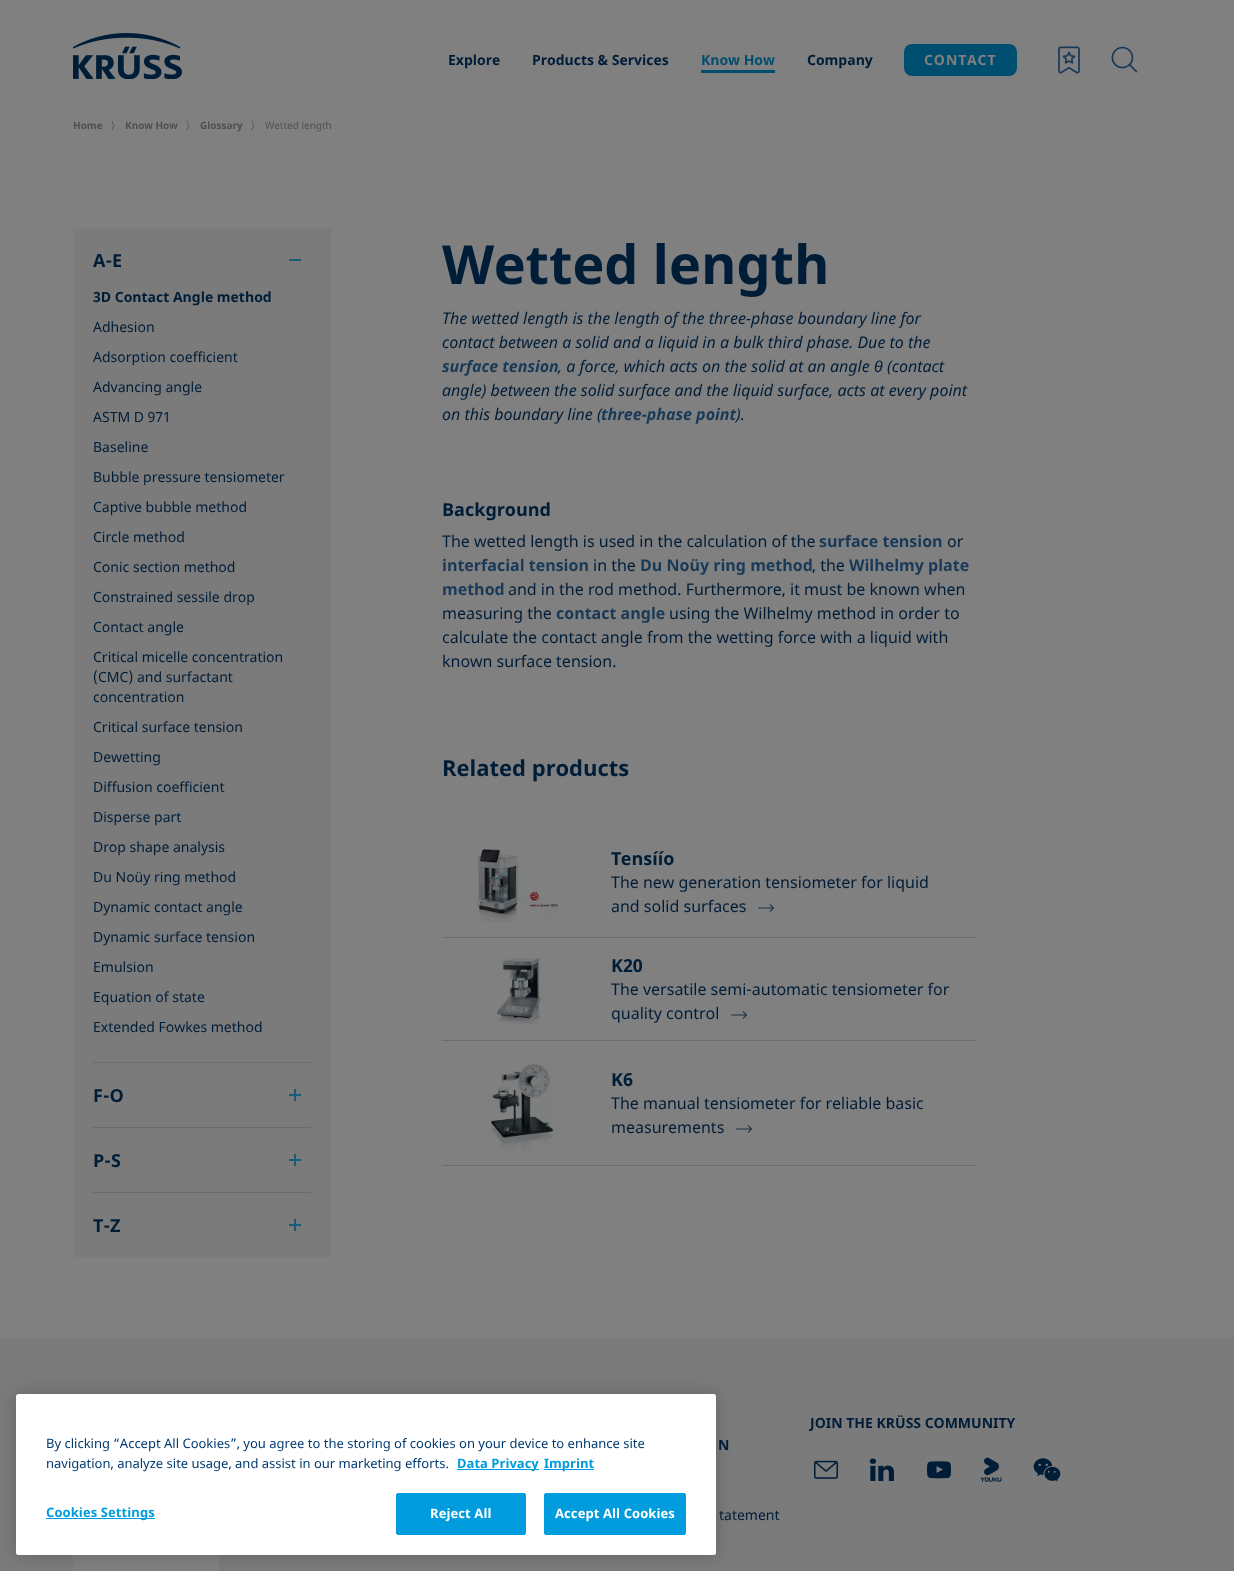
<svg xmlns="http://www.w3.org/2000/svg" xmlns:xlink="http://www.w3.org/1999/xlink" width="1234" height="1571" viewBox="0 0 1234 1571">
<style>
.cls-1{font:bold 14px Noto Sans;fill:#001d38}
.cls-2{font:bold 14px Noto Sans;fill:#004e6f}
.cls-3{font:bold 14px Noto Sans;letter-spacing:1px;fill:#808080}
.cls-4{font:bold 10px Noto Sans;fill:#4d5052}
.cls-5{font:10px Noto Sans;fill:#4d5052}
.cls-6{font:bold 18px Noto Sans;fill:#001d38}
.cls-7{font:14px Noto Sans;fill:#001d38}
.cls-8{font:bold 54px Noto Sans;fill:#001d38}
.cls-9{font:italic 16px Noto Sans;fill:#001d38}
.cls-10{font:italic bold 16px Noto Sans;fill:#183957}
.cls-11{font:italic 16px Liberation Sans;fill:#001d38}
.cls-12{font:16px Noto Sans;fill:#001d38}
.cls-13{font:bold 16px Noto Sans;fill:#183957}
.cls-14{font:bold 22px Noto Sans;fill:#001d38}
.cls-15{font:13px Noto Sans;fill:#003a70}
.cls-16{font:bold 13px Noto Sans;fill:#009cde}
.cls-17{font:bold 13px Noto Sans;letter-spacing:0.1px;fill:#009cde}
.cls-18{font:bold 13px Noto Sans;letter-spacing:0.1px;fill:#ffffff}
</style>
<rect width="100%" height="100%" fill="#808080"/>
<image xlink:href="image0.png" x="73" y="33" width="109" height="46"/>
<rect fill="#004e6f" x="701" y="70" width="74" height="3"/>
<rect fill="#004e6f" x="904" y="44" width="113" height="32" rx="8"/>
<image xlink:href="image1.png" x="1058" y="46" width="22" height="28"/>
<image xlink:href="image2.png" x="1111" y="46" width="27" height="27"/>
<image xlink:href="image3.png" x="111" y="120" width="3" height="11"/>
<image xlink:href="image3.png" x="186" y="120" width="3" height="11"/>
<image xlink:href="image3.png" x="251" y="120" width="3" height="11"/>
<rect fill="#7b7b7b" x="73" y="228" width="258" height="1029"/>
<rect fill="#175d79" x="289" y="259" width="12" height="2"/>
<rect fill="#6b6d6d" x="93" y="1062" width="218" height="1"/>
<rect fill="#175d79" x="289" y="1094" width="12" height="2"/>
<rect fill="#175d79" x="294" y="1089" width="2" height="12"/>
<rect fill="#6b6d6d" x="93" y="1127" width="218" height="1"/>
<rect fill="#175d79" x="289" y="1159" width="12" height="2"/>
<rect fill="#175d79" x="294" y="1154" width="2" height="12"/>
<rect fill="#6b6d6d" x="93" y="1192" width="218" height="1"/>
<rect fill="#175d79" x="289" y="1224" width="12" height="2"/>
<rect fill="#175d79" x="294" y="1219" width="2" height="12"/>
<rect fill="#6b6d6d" x="442" y="937" width="535" height="1"/>
<image xlink:href="image4.png" x="477" y="849" width="81" height="73"/>
<image xlink:href="image5.png" x="758" y="904" width="16" height="8"/>
<rect fill="#6b6d6d" x="442" y="1040" width="535" height="1"/>
<image xlink:href="image6.png" x="497" y="958" width="44" height="66"/>
<image xlink:href="image5.png" x="731" y="1011" width="16" height="8"/>
<rect fill="#6b6d6d" x="442" y="1165" width="535" height="1"/>
<image xlink:href="image7.png" x="490" y="1064" width="63" height="86"/>
<image xlink:href="image5.png" x="736" y="1125" width="16" height="8"/>
<rect fill="#7b7b7b" x="0" y="1337" width="1234" height="234"/>
<rect fill="#808080" x="73" y="1555" width="146" height="16"/>
<rect fill="#000000" fill-opacity="0.2" filter="blur(9px)" x="16" y="1394" width="700" height="161" rx="2.5"/>
<rect fill="#ffffff" x="16" y="1394" width="700" height="161" rx="2.5"/>
<rect fill="#009cde" x="457" y="1469" width="82" height="1"/>
<rect fill="#009cde" x="544" y="1469" width="50" height="1"/>
<rect fill="#009cde" x="46" y="1518" width="109" height="1"/>
<rect fill="#009cde" stroke="#009cde" x="396.5" y="1493.5" width="129" height="41" rx="1.5"/>
<rect fill="#009cde" stroke="#009cde" x="544.5" y="1493.5" width="141" height="41" rx="1.5"/>
<image xlink:href="image8.png" x="814" y="1460" width="24" height="19"/>
<image xlink:href="image9.png" x="869" y="1458" width="25" height="23"/>
<image xlink:href="image10.png" x="927" y="1461" width="24" height="18"/>
<image xlink:href="image11.png" x="980" y="1457" width="22" height="25"/>
<image xlink:href="image12.png" x="1033" y="1458" width="28" height="24"/>
<text class="cls-1" x="448" y="65">Explore</text>
<text class="cls-1" x="532" y="65">Products &amp; Services</text>
<text class="cls-2" x="701" y="65">Know How</text>
<text class="cls-1" x="807" y="65">Company</text>
<text class="cls-3" x="924" y="65">CONTACT</text>
<text class="cls-4" x="73" y="129">Home</text>
<text class="cls-4" x="125" y="129">Know How</text>
<text class="cls-4" x="200" y="129">Glossary</text>
<text class="cls-5" x="265" y="129">Wetted length</text>
<text class="cls-6" x="93" y="267">A-E</text>
<text class="cls-1" x="93" y="302">3D Contact Angle method</text>
<text class="cls-7" x="93" y="332">Adhesion</text>
<text class="cls-7" x="93" y="362">Adsorption coefficient</text>
<text class="cls-7" x="93" y="392">Advancing angle</text>
<text class="cls-7" x="93" y="422">ASTM D 971</text>
<text class="cls-7" x="93" y="452">Baseline</text>
<text class="cls-7" x="93" y="482">Bubble pressure tensiometer</text>
<text class="cls-7" x="93" y="512">Captive bubble method</text>
<text class="cls-7" x="93" y="542">Circle method</text>
<text class="cls-7" x="93" y="572">Conic section method</text>
<text class="cls-7" x="93" y="602">Constrained sessile drop</text>
<text class="cls-7" x="93" y="632">Contact angle</text>
<text class="cls-7"><tspan x="93" y="662">Critical micelle concentration</tspan><tspan x="93" y="682">(CMC) and surfactant</tspan><tspan x="93" y="702">concentration</tspan></text>
<text class="cls-7" x="93" y="732">Critical surface tension</text>
<text class="cls-7" x="93" y="762">Dewetting</text>
<text class="cls-7" x="93" y="792">Diffusion coefficient</text>
<text class="cls-7" x="93" y="822">Disperse part</text>
<text class="cls-7" x="93" y="852">Drop shape analysis</text>
<text class="cls-7" x="93" y="882">Du Noüy ring method</text>
<text class="cls-7" x="93" y="912">Dynamic contact angle</text>
<text class="cls-7" x="93" y="942">Dynamic surface tension</text>
<text class="cls-7" x="93" y="972">Emulsion</text>
<text class="cls-7" x="93" y="1002">Equation of state</text>
<text class="cls-7" x="93" y="1032">Extended Fowkes method</text>
<text class="cls-6" x="93" y="1102">F-O</text>
<text class="cls-6" x="93" y="1167">P-S</text>
<text class="cls-6" x="93" y="1232">T-Z</text>
<text class="cls-8" x="442" y="284">Wetted length</text>
<text class="cls-9"><tspan x="442" y="324">The wetted length is the length of the three-phase boundary line for</tspan><tspan x="442" y="348">contact between a solid and a liquid in a bulk third phase. Due to the</tspan></text>
<text class="cls-9" x="558" y="372">, a force, which acts on the solid at an angle</text>
<text class="cls-10" x="442" y="372">surface tension</text>
<text class="cls-11" x="874" y="372">θ</text>
<text class="cls-9" x="887" y="372">(contact</text>
<text class="cls-9"><tspan x="442" y="396">angle) between the solid surface and the liquid surface, acts at every point</tspan><tspan x="442" y="420">on this boundary line (</tspan></text>
<text class="cls-9" x="736" y="420">).</text>
<text class="cls-10" x="601" y="420">three-phase point</text>
<text class="cls-6" x="442" y="516">Background</text>
<text class="cls-12" x="442" y="547">The wetted length is used in the calculation of the</text>
<text class="cls-13" x="819" y="547">surface tension</text>
<text class="cls-12" x="947" y="547">or</text>
<text class="cls-13" x="442" y="571">interfacial tension</text>
<text class="cls-12" x="593" y="571">in the</text>
<text class="cls-13" x="640" y="571">Du Noüy ring method</text>
<text class="cls-12" x="812" y="571">, the</text>
<text class="cls-13" x="849" y="571">Wilhelmy plate</text>
<text class="cls-13" x="442" y="595">method</text>
<text class="cls-12" x="508" y="595">and in the rod method. Furthermore, it must be known when</text>
<text class="cls-12" x="442" y="619">measuring the</text>
<text class="cls-13" x="556" y="619">contact angle</text>
<text class="cls-12" x="669" y="619">using the Wilhelmy method in order to</text>
<text class="cls-12"><tspan x="442" y="643">calculate the contact angle from the wetting force with a liquid with</tspan><tspan x="442" y="667">known surface tension.</tspan></text>
<text class="cls-14" x="442" y="776">Related products</text>
<text class="cls-6" x="611" y="865">Tensíío</text>
<text class="cls-12"><tspan x="611" y="888">The new generation tensiometer for liquid</tspan><tspan x="611" y="912">and solid surfaces</tspan></text>
<text class="cls-6" x="611" y="972">K20</text>
<text class="cls-12"><tspan x="611" y="995">The versatile semi-automatic tensiometer for</tspan><tspan x="611" y="1019">quality control</tspan></text>
<text class="cls-6" x="611" y="1086">K6</text>
<text class="cls-12"><tspan x="611" y="1109">The manual tensiometer for reliable basic</tspan><tspan x="611" y="1133">measurements</tspan></text>
<text class="cls-15"><tspan x="46" y="1448">By clicking “Accept All Cookies”, you agree to the storing of cookies on your device to enhance site</tspan><tspan x="46" y="1468">navigation, analyze site usage, and assist in our marketing efforts.</tspan></text>
<text class="cls-16" x="457" y="1468">Data Privacy</text>
<text class="cls-16" x="544" y="1468">Imprint</text>
<text class="cls-17" x="46" y="1517">Cookies Settings</text>
<text class="cls-18" x="430" y="1518">Reject All</text>
<text class="cls-18" x="555" y="1518">Accept All Cookies</text>
<text class="cls-1" x="810" y="1428">JOIN THE KRÜSS COMMUNITY</text>
<text class="cls-1" x="718" y="1450">N</text>
<text class="cls-7" x="719" y="1520">tatement</text>
</svg>
